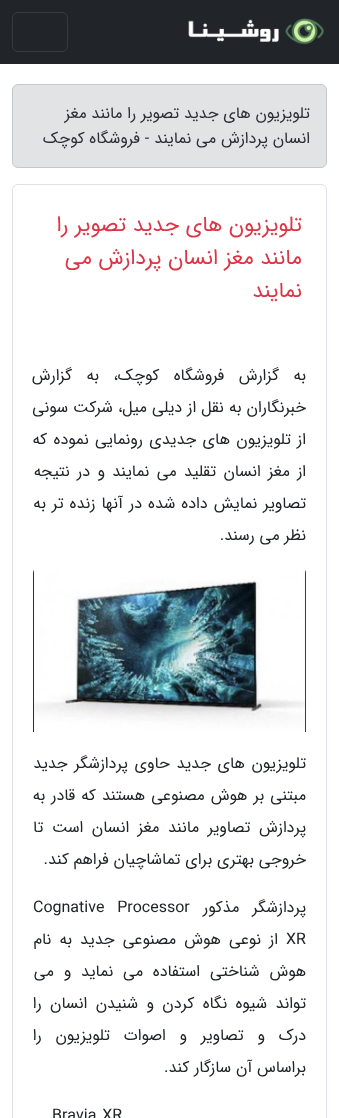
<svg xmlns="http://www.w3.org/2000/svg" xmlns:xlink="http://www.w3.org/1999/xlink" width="339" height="1118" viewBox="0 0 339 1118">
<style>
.cls-1{font:16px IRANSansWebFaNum;direction:rtl;fill:#2b2f32}
.cls-2{font:21.5px IRANSansWebFaNum;direction:rtl;fill:#dc3545}
.cls-3{font:16px IRANSansWebFaNum;direction:rtl;fill:#212529}
.cls-4{font:16px IRANSansWebFaNum;fill:#212529}
</style>
<rect width="100%" height="100%" fill="#ffffff"/>
<rect fill="#212529" x="0" y="0" width="339" height="64"/>
<image xlink:href="image0.png" x="188" y="18" width="136" height="27"/>
<rect fill="none" stroke="#373b3e" x="12.5" y="12.5" width="55" height="39" rx="5.5"/>
<rect fill="#e2e3e5" stroke="#c4c8cb" x="12.5" y="84.5" width="314" height="83" rx="5.5"/>
<rect fill="none" stroke="#dee2e6" x="12.5" y="184.5" width="314" height="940" rx="5.5"/>
<image xlink:href="image1.png" x="33" y="570" width="273" height="162"/>
<text class="cls-1"><tspan x="310" y="118">تلویزیون های جدید تصویر را مانند مغز</tspan><tspan x="310" y="143">انسان پردازش می نمایند - فروشگاه کوچک</tspan></text>
<text class="cls-2"><tspan x="302" y="231">تلویزیون های جدید تصویر را</tspan><tspan x="302" y="264">مانند مغز انسان پردازش می</tspan><tspan x="302" y="297">نمایند</tspan></text>
<text class="cls-3" x="306" y="380" word-spacing="9.5">به گزارش فروشگاه کوچک، به گزارش</text>
<text class="cls-3" x="306" y="412" word-spacing="0.25">خبرنگاران به نقل از دیلی میل، شرکت سونی</text>
<text class="cls-3" x="306" y="444" word-spacing="1.5">از تلویزیون های جدیدی رونمایی نموده که</text>
<text class="cls-3" x="306" y="476" word-spacing="2.5">از مغز انسان تقلید می نمایند و در نتیجه</text>
<text class="cls-3" x="306" y="508" word-spacing="1.25">تصاویر نمایش داده شده در آنها زنده تر به</text>
<text class="cls-3" x="306" y="540">نظر می رسند.</text>
<text class="cls-3" x="306" y="768" word-spacing="1.75">تلویزیون های جدید حاوی پردازشگر جدید</text>
<text class="cls-3" x="306" y="800" word-spacing="1.25">مبتنی بر هوش مصنوعی هستند که قادر به</text>
<text class="cls-3" x="306" y="832" word-spacing="3.75">پردازش تصاویر مانند مغز انسان است تا</text>
<text class="cls-3" x="306" y="864">خروجی بهتری برای تماشاچیان فراهم کند.</text>
<text class="cls-3" x="306" y="912" word-spacing="8">پردازشگر مذکور</text>
<text class="cls-4" x="33" y="912" word-spacing="8">Cognative Processor</text>
<text class="cls-4" x="286" y="944">XR</text>
<text class="cls-3" x="278" y="944" word-spacing="3.25">از نوعی هوش مصنوعی جدید به نام</text>
<text class="cls-3" x="306" y="976" word-spacing="5">هوش شناختی استفاده می نماید و می</text>
<text class="cls-3" x="306" y="1008" word-spacing="3.5">تواند شیوه نگاه کردن و شنیدن انسان را</text>
<text class="cls-3" x="306" y="1040" word-spacing="9">درک و تصاویر و اصوات تلویزیون را</text>
<text class="cls-3" x="306" y="1072">براساس آن سازگار کند.</text>
<text class="cls-4" x="52" y="1120" word-spacing="1">Bravia XR</text>
</svg>
